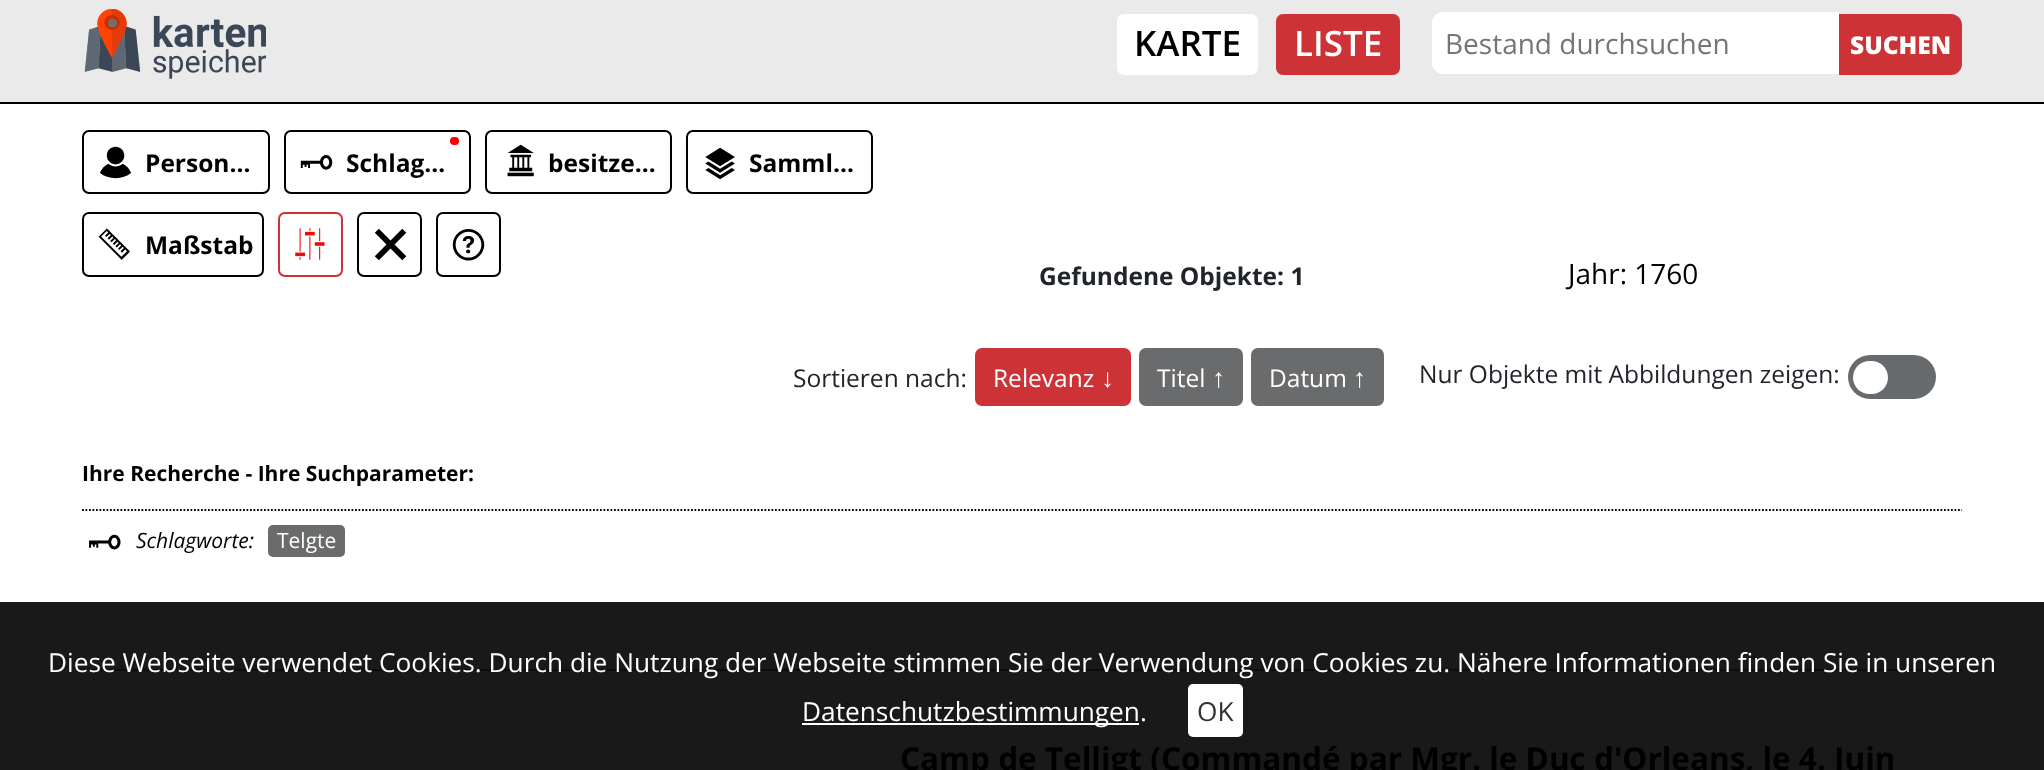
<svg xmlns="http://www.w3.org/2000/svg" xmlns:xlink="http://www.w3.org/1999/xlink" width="2044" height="770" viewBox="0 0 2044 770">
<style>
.cls-1{font:600 35px Open Sans;fill:#000000}
.cls-2{font:600 35px Open Sans;fill:#ffffff}
.cls-3{font:28px Open Sans;fill:#757575}
.cls-4{font:800 24.5px Open Sans;fill:#ffffff}
.cls-5{font:bold 24.5px Open Sans;fill:#000000}
.cls-6{font:bold 24.5px Open Sans;fill:#212529}
.cls-7{font:28px Open Sans;fill:#000000}
.cls-8{font:24.5px Open Sans;fill:#212529}
.cls-9{font:24.5px Open Sans;fill:#ffffff}
.cls-10{font:26.25px Liberation Serif;fill:#ffffff}
.cls-11{font:bold 21px Open Sans;fill:#000000}
.cls-12{font:italic 21px Open Sans;fill:#000000}
.cls-13{font:21px Open Sans;fill:#ffffff}
.cls-14{font:bold 31.5px Open Sans;fill:#000000}
.cls-15{font:26.25px Open Sans;fill:#ffffff}
.cls-16{font:26.25px Open Sans;fill:#333333}
</style>
<rect width="100%" height="100%" fill="#ffffff"/>
<rect fill="#191919" x="0" y="602" width="2044" height="168"/>
<rect fill="#eaeaea" x="0" y="0" width="2044" height="102"/>
<rect fill="#000000" x="0" y="102" width="2044" height="2"/>
<image xlink:href="image0.png" x="84" y="9" width="182" height="70"/>
<rect fill="#ffffff" x="1117" y="14" width="141" height="61" rx="7"/>
<rect fill="#cd3336" x="1276" y="14" width="124" height="61" rx="7"/>
<path fill="#ffffff" d="M1443 12H1839V74H1443C1437 74 1432 69 1432 63V23C1432 17 1437 12 1443 12Z"/>
<path fill="#cd3336" d="M1839 14H1951C1957 14 1962 19 1962 25V64C1962 70 1957 75 1951 75H1839Z"/>
<rect fill="none" stroke="#000000" stroke-width="2" x="83" y="131" width="186" height="62" rx="6"/>
<image xlink:href="image1.png" x="100" y="146" width="32" height="33"/>
<rect fill="none" stroke="#000000" stroke-width="2" x="285" y="131" width="185" height="62" rx="6"/>
<rect fill="#ff0000" x="450" y="137" width="9" height="8" rx="4"/>
<image xlink:href="image2.png" x="300" y="155" width="33" height="15"/>
<rect fill="none" stroke="#000000" stroke-width="2" x="486" y="131" width="185" height="62" rx="6"/>
<image xlink:href="image3.png" x="507" y="144" width="27" height="33"/>
<rect fill="none" stroke="#000000" stroke-width="2" x="687" y="131" width="185" height="62" rx="6"/>
<image xlink:href="image4.png" x="705" y="147" width="30" height="33"/>
<rect fill="none" stroke="#000000" stroke-width="2" x="83" y="213" width="180" height="63" rx="6"/>
<image xlink:href="image5.png" x="98" y="228" width="32" height="32"/>
<rect fill="none" stroke="#cd3336" stroke-width="2" x="279" y="213" width="63" height="63" rx="6"/>
<image xlink:href="image6.png" x="295" y="228" width="30" height="32"/>
<rect fill="none" stroke="#000000" stroke-width="2" x="358" y="213" width="63" height="63" rx="6"/>
<image xlink:href="image7.png" x="374" y="228" width="33" height="33"/>
<rect fill="none" stroke="#000000" stroke-width="2" x="437" y="213" width="63" height="63" rx="6"/>
<image xlink:href="image8.png" x="452" y="229" width="33" height="32"/>
<rect fill="#cd3336" x="975" y="348" width="156" height="58" rx="7"/>
<rect fill="#696b6d" x="1139" y="348" width="104" height="58" rx="7"/>
<rect fill="#696b6d" x="1251" y="348" width="133" height="58" rx="7"/>
<rect fill="#686b6d" x="1848" y="355" width="88" height="44" rx="22"/>
<rect fill="#ffffff" x="1853" y="361" width="35" height="33" rx="16.5"/>
<path fill="none" stroke="#000000" stroke-width="1.8" stroke-dasharray="1.75 1.75" d="M82 510H1962"/>
<image xlink:href="image9.png" x="89" y="534" width="32" height="16"/>
<rect fill="#696b6d" x="268" y="525" width="77" height="32" rx="5"/>
<rect fill="#0d0d0d" x="82" y="669" width="1880" height="2"/>
<rect fill="#ffffff" x="802" y="723" width="337" height="2"/>
<rect fill="#ffffff" x="1188" y="684" width="55" height="53" rx="5"/>
<text class="cls-1" x="1134" y="56">KARTE</text>
<text class="cls-2" x="1294" y="56">LISTE</text>
<text class="cls-3" x="1445" y="54">Bestand durchsuchen</text>
<text class="cls-4" x="1850" y="54">SUCHEN</text>
<text class="cls-5" x="145" y="172">Person…</text>
<text class="cls-5" x="346" y="172">Schlag…</text>
<text class="cls-5" x="548" y="172">besitze…</text>
<text class="cls-5" x="749" y="172">Samml…</text>
<text class="cls-5" x="145" y="254">Maßstab</text>
<text class="cls-6" x="1039" y="285">Gefundene Objekte: 1</text>
<text class="cls-7" x="1568" y="284">Jahr: 1760</text>
<text class="cls-8" x="793" y="387">Sortieren nach:</text>
<text class="cls-9" x="993" y="387">Relevanz</text>
<text class="cls-10" x="1101" y="387">↓</text>
<text class="cls-9" x="1157" y="387">Titel</text>
<text class="cls-10" x="1212" y="387">↑</text>
<text class="cls-9" x="1269" y="387">Datum</text>
<text class="cls-10" x="1353" y="387">↑</text>
<text class="cls-8" x="1419" y="383">Nur Objekte mit Abbildungen zeigen:</text>
<text class="cls-11" x="82" y="481">Ihre Recherche - Ihre Suchparameter:</text>
<text class="cls-12" x="136" y="548">Schlagworte:</text>
<text class="cls-13" x="277" y="548">Telgte</text>
<text class="cls-14" x="900" y="770">Camp de Telligt (Commandé par Mgr. le Duc d'Orleans, le 4. Juin</text>
<text class="cls-15" x="48" y="672">Diese Webseite verwendet Cookies. Durch die Nutzung der Webseite stimmen Sie der Verwendung von Cookies zu. Nähere Informationen finden Sie in unseren</text>
<text class="cls-15" x="802" y="721">Datenschutzbestimmungen.</text>
<text class="cls-16" x="1197" y="721">OK</text>
</svg>
